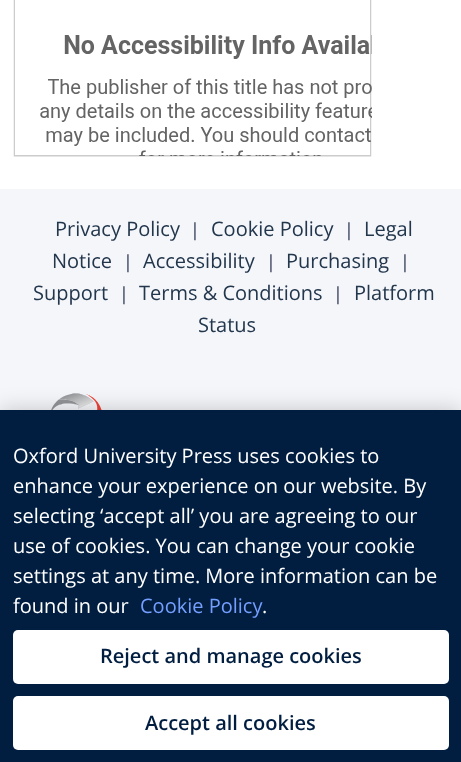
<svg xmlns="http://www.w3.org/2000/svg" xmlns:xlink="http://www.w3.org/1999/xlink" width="461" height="762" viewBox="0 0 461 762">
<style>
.cls-1{font:20px Open Sans;fill:#22364c}
.cls-2{font:18px Open Sans;fill:#26304d}
.cls-3{font:20px Open Sans;fill:#ffffff}
.cls-4{font:20px Open Sans;fill:#759fff}
.cls-5{font:600 20px Open Sans;fill:#011e41}
</style>
<rect width="100%" height="100%" fill="#ffffff"/>
<rect fill="none" stroke="#cccccc" x="14.5" y="-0.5" width="356" height="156"/>
<image xlink:href="image0.png" x="13" y="0" width="359" height="157"/>
<rect fill="#f5f6fa" x="0" y="189" width="461" height="221"/>
<image xlink:href="image1.png" x="51" y="393" width="51" height="17"/>
<rect fill="#000000" fill-opacity="0.2" filter="blur(11px)" x="0" y="410" width="461" height="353"/>
<rect fill="#011e41" x="0" y="410" width="461" height="352"/>
<rect fill="#ffffff" x="13" y="630" width="436" height="54" rx="5"/>
<rect fill="#ffffff" x="13" y="696" width="436" height="54" rx="5"/>
<text class="cls-1" x="55" y="236">Privacy Policy</text>
<text class="cls-2" x="190" y="236">|</text>
<text class="cls-1" x="211" y="236">Cookie Policy</text>
<text class="cls-2" x="344" y="236">|</text>
<text class="cls-1" x="364" y="236">Legal</text>
<text class="cls-1" x="52" y="268">Notice</text>
<text class="cls-2" x="123" y="268">|</text>
<text class="cls-1" x="143" y="268">Accessibility</text>
<text class="cls-2" x="266" y="268">|</text>
<text class="cls-1" x="286" y="268">Purchasing</text>
<text class="cls-2" x="400" y="268">|</text>
<text class="cls-1" x="33" y="300">Support</text>
<text class="cls-2" x="119" y="300">|</text>
<text class="cls-1" x="139" y="300">Terms &amp; Conditions</text>
<text class="cls-2" x="333" y="300">|</text>
<text class="cls-1" x="354" y="300">Platform</text>
<text class="cls-1" x="198" y="332">Status</text>
<text class="cls-3"><tspan x="13" y="463">Oxford University Press uses cookies to</tspan><tspan x="13" y="493">enhance your experience on our website. By</tspan><tspan x="13" y="523">selecting ‘accept all’ you are agreeing to our</tspan><tspan x="13" y="553">use of cookies. You can change your cookie</tspan><tspan x="13" y="583">settings at any time. More information can be</tspan><tspan x="13" y="613">found in our</tspan></text>
<text class="cls-4" x="140" y="613">Cookie Policy</text>
<text class="cls-3" x="262" y="613">.</text>
<text class="cls-5" x="100" y="663">Reject and manage cookies</text>
<text class="cls-5" x="145" y="730">Accept all cookies</text>
</svg>
